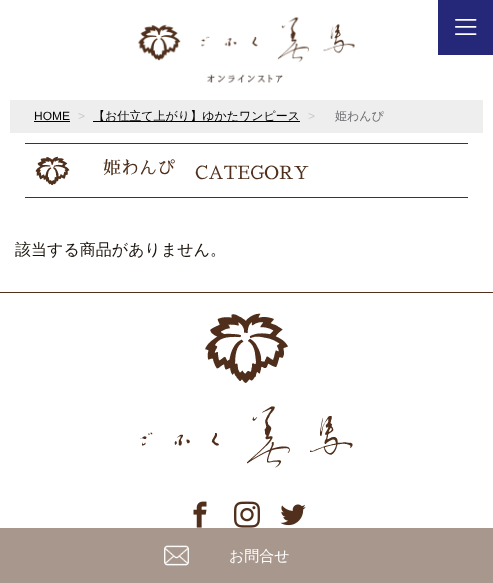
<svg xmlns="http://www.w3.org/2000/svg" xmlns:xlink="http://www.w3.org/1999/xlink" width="493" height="583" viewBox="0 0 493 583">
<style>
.cls-1{font:12px Liberation Sans;fill:#000000}
.cls-2{font:12px Liberation Sans;fill:#c9c9c9}
.cls-3{font:500 12px WenQuanYi Zen Hei;fill:#000000}
.cls-4{font:500 12px WenQuanYi Zen Hei;fill:#6d6d72}
.cls-5{font:18px Sawarabi Mincho;fill:#50301c}
.cls-6{font:500 16px WenQuanYi Zen Hei;fill:#1a130c}
.cls-7{font:500 15px WenQuanYi Zen Hei;fill:#ffffff}
</style>
<rect width="100%" height="100%" fill="#ffffff"/>
<image xlink:href="image0.png" x="138" y="17" width="217" height="66"/>
<rect fill="#252778" x="438" y="0" width="55" height="55"/>
<image xlink:href="image1.png" x="455" y="19" width="22" height="16"/>
<rect fill="#eeeeee" x="10" y="100" width="473" height="33"/>
<rect fill="#000000" x="34" y="121" width="36" height="1"/>
<rect fill="#000000" x="93" y="121" width="207" height="1"/>
<image xlink:href="image2.png" x="35" y="156" width="35" height="30"/>
<rect fill="#50301c" x="25" y="143" width="443" height="1"/>
<rect fill="#50301c" x="25" y="197" width="443" height="1"/>
<rect fill="#50301c" x="0" y="292" width="493" height="1"/>
<image xlink:href="image3.png" x="140" y="313" width="213" height="155"/>
<image xlink:href="image4.png" x="193" y="501" width="14" height="27"/>
<image xlink:href="image5.png" x="234" y="501" width="26" height="27"/>
<image xlink:href="image6.png" x="280" y="504" width="26" height="22"/>
<rect fill="#a7978d" x="0" y="528" width="493" height="55"/>
<image xlink:href="image7.png" x="164" y="545" width="25" height="21"/>
<text class="cls-1" x="34" y="120">HOME</text>
<text class="cls-2" x="78" y="120">&gt;</text>
<text class="cls-3" x="93" y="120">【お仕立て上がり】ゆかたワンピース</text>
<text class="cls-2" x="308" y="120">&gt;</text>
<text class="cls-4" x="335" y="120">姫わんぴ</text>
<text class="cls-5" x="103" y="174">姫わんぴ</text>
<text class="cls-5" x="195" y="179">CATEGORY</text>
<text class="cls-6" x="15" y="255">該当する商品がありません。</text>
<text class="cls-7" x="229" y="561">お問合せ</text>
</svg>
